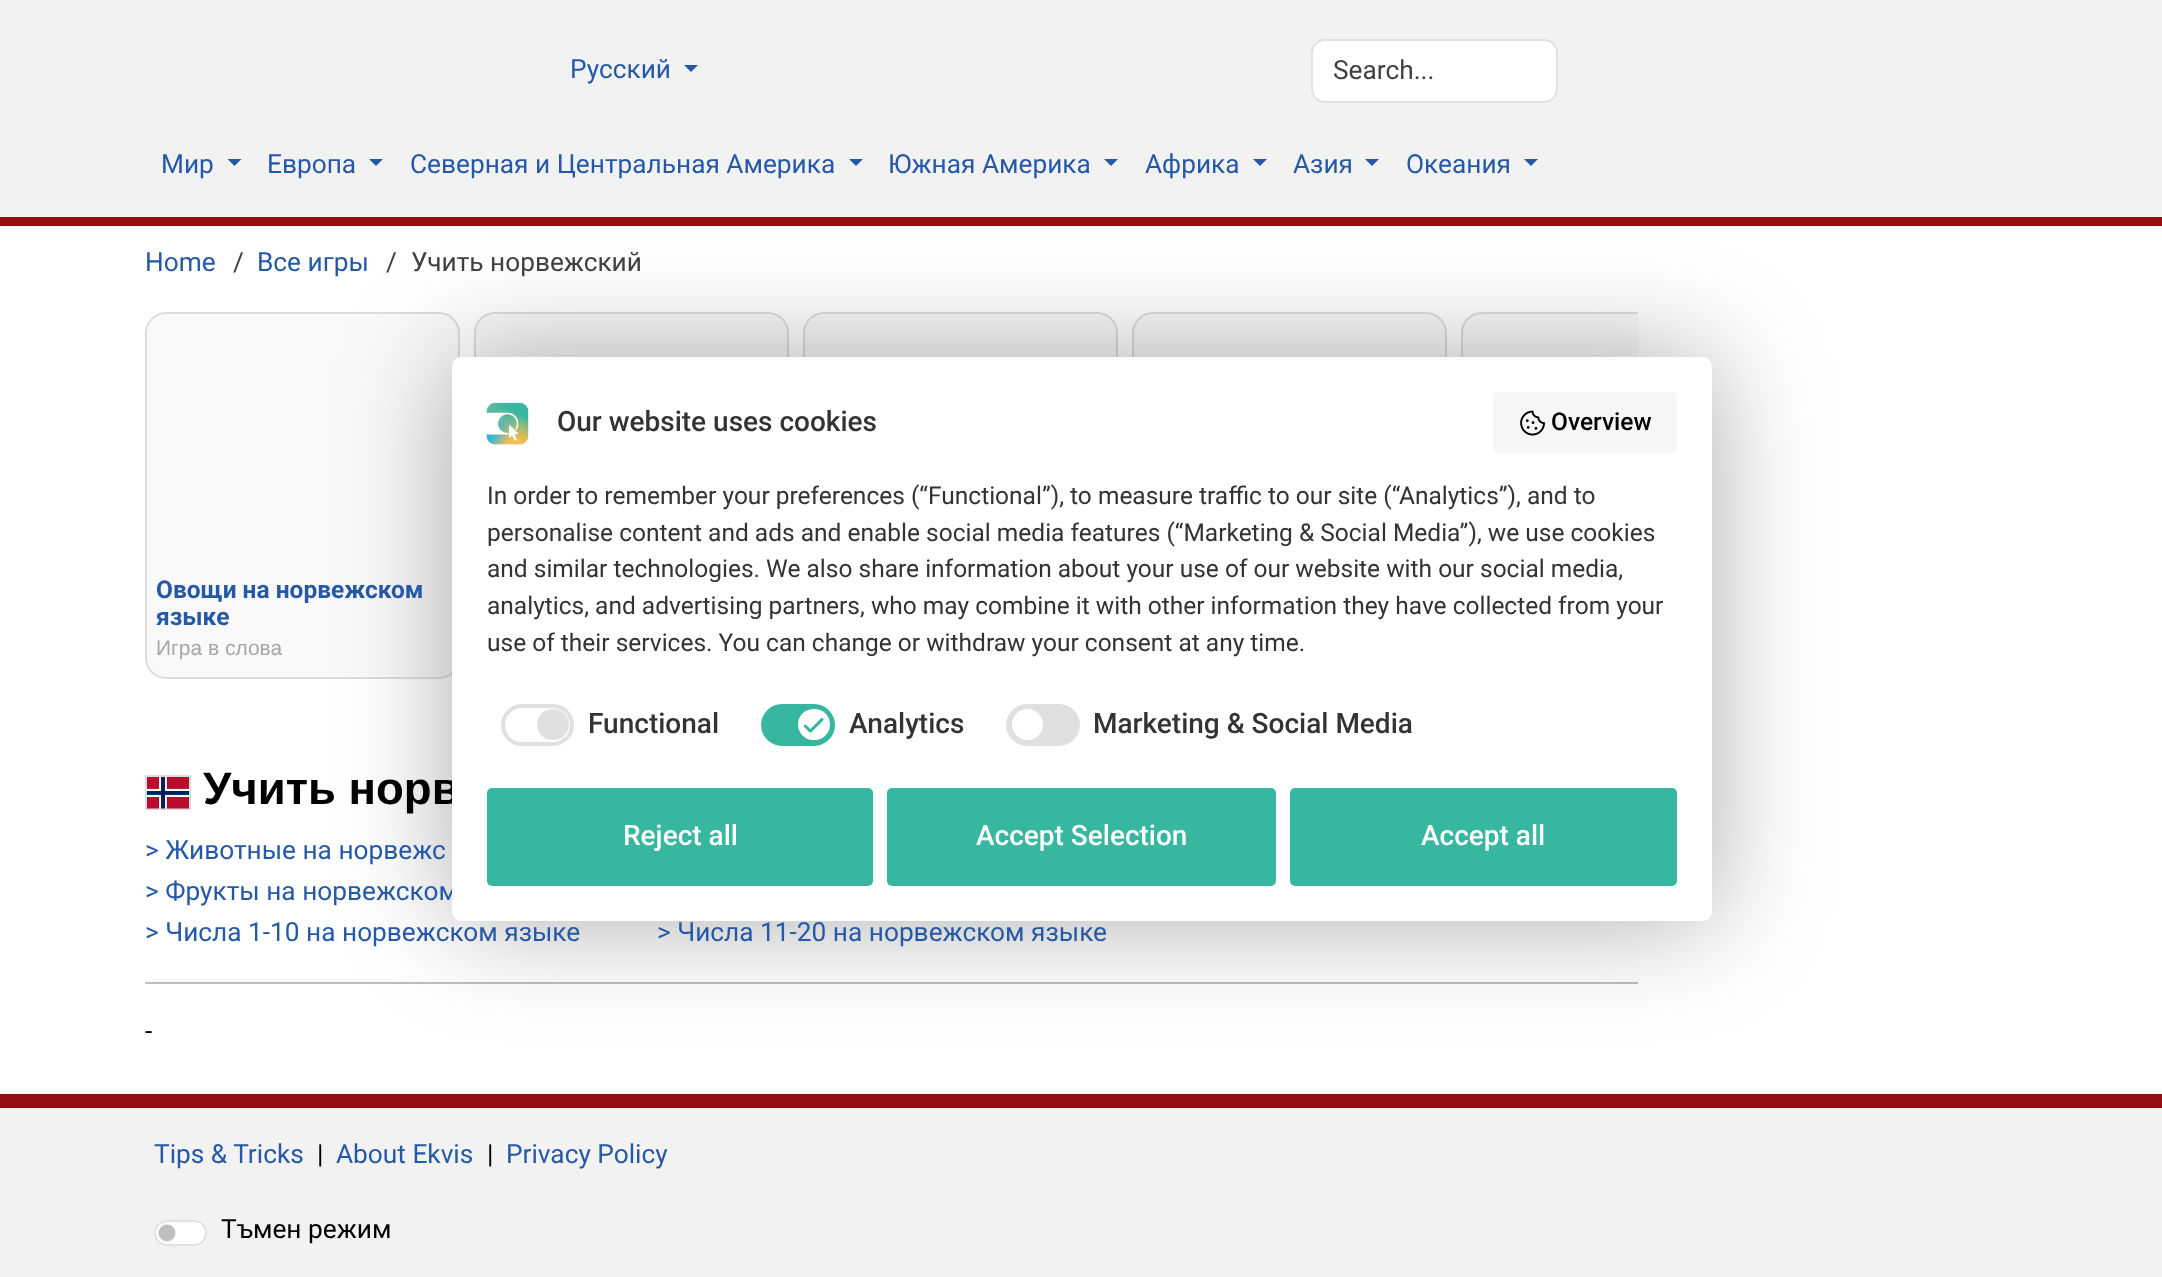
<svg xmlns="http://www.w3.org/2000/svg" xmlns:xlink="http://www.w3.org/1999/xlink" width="2162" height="1277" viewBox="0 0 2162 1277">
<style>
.cls-1{font:26.25px Roboto;fill:#2559a7}
.cls-2{font:26.25px Roboto;fill:#404040}
.cls-3{font:bold 24.5px Roboto;fill:#2559a7}
.cls-4{font:21px Liberation Sans;fill:#a7a7a7}
.cls-5{font:bold 45.5px Liberation Sans;fill:#000000}
.cls-6{font:26.25px Roboto;fill:#000000}
.cls-7{font:500 28px Roboto;fill:#333333}
.cls-8{font:500 24.5px Roboto;fill:#000000}
.cls-9{font:24.5px Roboto;fill:#333333}
.cls-10{font:500 28px Roboto;fill:#ffffff}
</style>
<defs>
<clipPath id="clip1"><rect x="145" y="312" width="1493" height="381"/></clipPath>
</defs>
<rect width="100%" height="100%" fill="#ffffff"/>
<rect fill="#f2f2f2" x="0" y="0" width="2162" height="217"/>
<rect fill="#940f0f" x="0" y="217" width="2162" height="9"/>
<path fill="#2559a7" d="M684 65H698L691 72Z"/>
<rect fill="#ffffff" stroke="#dee2e6" stroke-width="2" x="1312" y="40" width="245" height="62" rx="13"/>
<path fill="#2559a7" d="M227.5 159H241.5L234.5 166Z"/>
<path fill="#2559a7" d="M369 159H383L376 166Z"/>
<path fill="#2559a7" d="M849 159H863L856 166Z"/>
<path fill="#2559a7" d="M1104 159H1118L1111 166Z"/>
<path fill="#2559a7" d="M1253 159H1267L1260 166Z"/>
<path fill="#2559a7" d="M1365 159H1379L1372 166Z"/>
<path fill="#2559a7" d="M1524 159H1538L1531 166Z"/>
<rect fill="#f9f9f9" stroke="#dddddd" stroke-width="2" x="146" y="313" width="313" height="365" rx="20"/>
<rect fill="#f9f9f9" stroke="#dddddd" stroke-width="2" x="475" y="313" width="313" height="365" rx="20"/>
<rect fill="#f9f9f9" stroke="#dddddd" stroke-width="2" x="804" y="313" width="313" height="365" rx="20"/>
<rect fill="#f9f9f9" stroke="#dddddd" stroke-width="2" x="1133" y="313" width="313" height="365" rx="20"/>
<path fill="#f9f9f9" d="M1482 312H1638V679H1482C1470.5 679 1461 669.5 1461 658V333C1461 321.5 1470.5 312 1482 312Z"/>
<g clip-path="url(#clip1)">
<rect fill="none" stroke="#dddddd" stroke-width="2" x="1462" y="313" width="313" height="365" rx="20"/>
</g>
<rect fill="none" stroke="#dddddd" stroke-width="2" x="146" y="776" width="44" height="33"/>
<image xlink:href="image0.png" x="147" y="777" width="42" height="32"/>
<rect fill="#bfbfbf" x="145" y="982" width="1493" height="2"/>
<rect fill="#000000" fill-opacity="0.33" filter="blur(56px)" x="452" y="357" width="1260" height="564" rx="9"/>
<rect fill="#f2f2f2" x="0" y="1108" width="2162" height="169"/>
<rect fill="#940f0f" x="0" y="1094" width="2162" height="14"/>
<rect fill="#ffffff" x="154" y="1220" width="53" height="26" rx="13"/>
<circle fill="#bfbfbf" cx="167" cy="1233" r="8.5"/>
<rect fill="none" stroke="#dee2e6" stroke-width="2" x="155" y="1221" width="51" height="24" rx="12"/>
<text class="cls-1" x="570" y="78">Русский</text>
<text class="cls-2" x="1333" y="79">Search...</text>
<text class="cls-1" x="161" y="173">Мир</text>
<text class="cls-1" x="267" y="173">Европа</text>
<text class="cls-1" x="410" y="173">Северная и Центральная Америка</text>
<text class="cls-1" x="888" y="173">Южная Америка</text>
<text class="cls-1" x="1145" y="173">Африка</text>
<text class="cls-1" x="1293" y="173">Азия</text>
<text class="cls-1" x="1406" y="173">Океания</text>
<text class="cls-1" x="145" y="271">Home</text>
<text class="cls-2" x="233" y="271">/</text>
<text class="cls-1" x="257" y="271">Все игры</text>
<text class="cls-2" x="386" y="271">/</text>
<text class="cls-2" x="411" y="271">Учить норвежский</text>
<text class="cls-3"><tspan x="156" y="598">Овощи на норвежском</tspan><tspan x="156" y="625">языке</tspan></text>
<text class="cls-4" x="156" y="655">Игра в слова</text>
<text class="cls-5" x="203" y="804">Учить норв</text>
<text class="cls-1"><tspan x="145" y="859">&gt; Животные на норвежс</tspan><tspan x="145" y="900">&gt; Фрукты на норвежском</tspan><tspan x="145" y="941">&gt; Числа 1-10 на норвежском языке</tspan></text>
<text class="cls-1" x="657" y="941">&gt; Числа 11-20 на норвежском языке</text>
<text class="cls-6" x="145" y="1040">-</text>
<rect fill="#ffffff" x="452" y="357" width="1260" height="564" rx="9"/>
<image xlink:href="image1.png" x="486" y="402" width="43" height="43"/>
<text class="cls-7" x="557" y="431">Our website uses cookies</text>
<rect fill="#f6f6f6" x="1493" y="392" width="184" height="61" rx="5"/>
<image xlink:href="image2.png" x="1520" y="410" width="25" height="26"/>
<text class="cls-8" x="1551" y="430">Overview</text>
<text class="cls-9"><tspan x="487" y="504">In order to remember your preferences (“Functional”), to measure traffic to our site (“Analytics”), and to</tspan><tspan x="487" y="541">personalise content and ads and enable social media features (“Marketing &amp; Social Media”), we use cookies</tspan><tspan x="487" y="577">and similar technologies. We also share information about your use of our website with our social media,</tspan><tspan x="487" y="614">analytics, and advertising partners, who may combine it with other information they have collected from your</tspan><tspan x="487" y="651">use of their services. You can change or withdraw your consent at any time.</tspan></text>
<rect fill="none" stroke="#e0e0e0" stroke-width="4" x="503" y="706" width="69" height="38" rx="19"/>
<rect fill="#e0e0e0" x="537" y="709" width="32" height="31" rx="15.5"/>
<text class="cls-7" x="588" y="733">Functional</text>
<rect fill="#37b79f" stroke="#37b79f" stroke-width="4" x="763" y="706" width="70" height="38" rx="19"/>
<rect fill="#ffffff" x="798" y="709" width="32" height="31" rx="15.5"/>
<image xlink:href="image3.png" x="803" y="717" width="21" height="16"/>
<text class="cls-7" x="849" y="733">Analytics</text>
<rect fill="#e0e0e0" stroke="#e0e0e0" stroke-width="4" x="1008" y="706" width="70" height="38" rx="19"/>
<circle fill="#ffffff" cx="1027.5" cy="724.5" r="15.5"/>
<text class="cls-7" x="1093" y="733">Marketing &amp; Social Media</text>
<rect fill="#37b79f" x="487" y="788" width="386" height="98" rx="5"/>
<text class="cls-10" x="623" y="845">Reject all</text>
<rect fill="#37b79f" x="887" y="788" width="389" height="98" rx="5"/>
<text class="cls-10" x="976" y="845">Accept Selection</text>
<rect fill="#37b79f" x="1290" y="788" width="387" height="98" rx="5"/>
<text class="cls-10" x="1421" y="845">Accept all</text>
<text class="cls-1" x="154" y="1163">Tips &amp; Tricks</text>
<text class="cls-6" x="317" y="1163">|</text>
<text class="cls-1" x="336" y="1163">About Ekvis</text>
<text class="cls-6" x="487" y="1163">|</text>
<text class="cls-1" x="506" y="1163">Privacy Policy</text>
<text class="cls-6" x="221" y="1238">Тъмен режим</text>
</svg>
